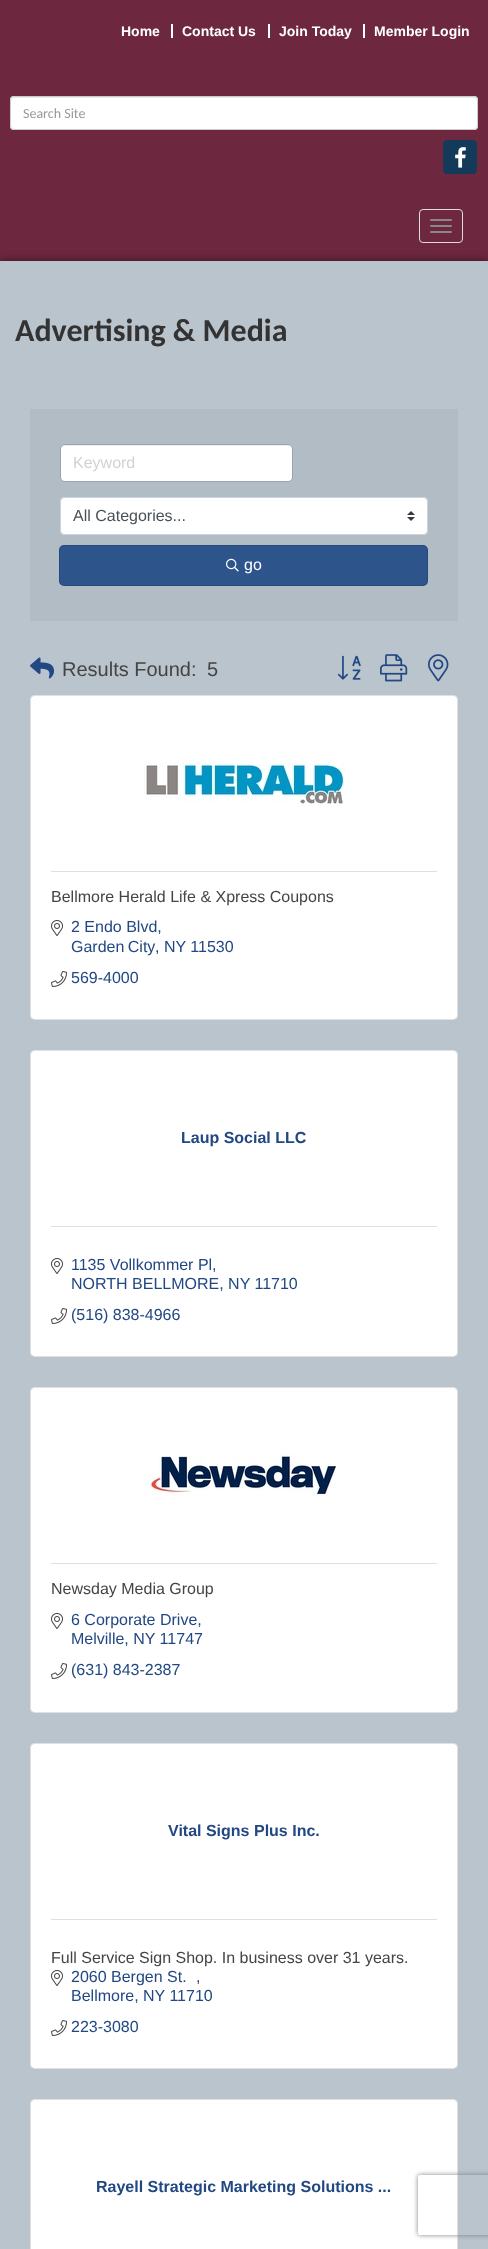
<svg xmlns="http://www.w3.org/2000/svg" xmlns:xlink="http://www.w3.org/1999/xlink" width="488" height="2249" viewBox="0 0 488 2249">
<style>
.cls-1{font:bold 14px Liberation Sans;fill:#ffffff}
.cls-2{font:14px Carlito;fill:#999999}
.cls-3{font:bold 32px Carlito;fill:#333333}
.cls-4{font:16px Liberation Sans;fill:#d2d2d2}
.cls-5{font:16px Liberation Sans;fill:#495057}
.cls-6{font:16px Liberation Sans;fill:#ffffff}
.cls-7{font:20px Liberation Sans;fill:#444444}
.cls-8{font:16px Liberation Sans;fill:#444444}
.cls-9{font:16px Liberation Sans;fill:#224884}
.cls-10{font:bold 16px Liberation Sans;fill:#224884}
</style>
<defs>
<clipPath id="clip1"><path d="M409 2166H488V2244H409ZM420 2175H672C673 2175 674 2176 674 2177V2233C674 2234 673 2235 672 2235H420C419 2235 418 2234 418 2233V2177C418 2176 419 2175 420 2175Z" clip-rule="evenodd"/></clipPath>
</defs>
<rect width="100%" height="100%" fill="#6d283f"/>
<rect fill="#ffffff" x="171" y="24" width="2" height="14"/>
<rect fill="#ffffff" x="268" y="24" width="2" height="14"/>
<rect fill="#ffffff" x="363" y="24" width="2" height="14"/>
<rect fill="#ffffff" x="10" y="96" width="468" height="34" rx="4"/>
<path fill="#ececec" d="M14 98H474C476 98 477 99 477 101V100C477 98 476 97 474 97H14C12 97 11 98 11 100V101C11 99 12 98 14 98Z"/>
<rect fill="none" stroke="#cccccc" x="10.5" y="96.5" width="467" height="33" rx="3.5"/>
<rect fill="#143a59" stroke="#143a59" x="443.5" y="140.5" width="33" height="33" rx="3.5"/>
<image xlink:href="image0.png" x="455" y="147" width="11" height="21"/>
<rect fill="none" stroke="#dddddd" x="419.5" y="209.5" width="43" height="33" rx="3.5"/>
<rect fill="#888888" x="430" y="219" width="22" height="2" rx="1"/>
<rect fill="#888888" x="430" y="225" width="22" height="2" rx="1"/>
<rect fill="#888888" x="430" y="231" width="22" height="2" rx="1"/>
<rect fill="#000000" fill-opacity="0.5" filter="blur(5px)" x="0" y="261" width="488" height="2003"/>
<rect fill="#b9c4cd" x="0" y="261" width="488" height="1988"/>
<rect fill="#b2bcc5" x="30" y="409" width="428" height="212"/>
<rect fill="#ffffff" x="61" y="445" width="231" height="36" rx="4"/>
<path fill="#000000" fill-opacity="0.07" d="M65 446H288C290 446 292 448 292 450C292 447 291 445 288 445H65C62 445 61 447 61 450C61 448 63 446 65 446Z"/>
<rect fill="none" stroke="#000000" stroke-opacity="0.12" x="60.5" y="444.5" width="232" height="37" rx="4.5"/>
<rect fill="#ffffff" x="60" y="497" width="368" height="38" rx="5"/>
<image xlink:href="image1.png" x="407" y="511" width="8" height="10"/>
<rect fill="none" stroke="#ced4da" x="60.5" y="497.5" width="367" height="37" rx="4.5"/>
<rect fill="#2d548b" x="59" y="545" width="369" height="41" rx="5"/>
<rect fill="none" stroke="#000000" stroke-opacity="0.12" x="59.5" y="545.5" width="368" height="40" rx="4.5"/>
<image xlink:href="image2.png" x="226" y="558" width="13" height="14"/>
<image xlink:href="image3.png" x="30" y="657" width="24" height="22"/>
<image xlink:href="image4.png" x="337" y="655" width="24" height="25"/>
<image xlink:href="image5.png" x="380" y="654" width="28" height="28"/>
<image xlink:href="image6.png" x="428" y="654" width="21" height="28"/>
<rect fill="#ffffff" x="30" y="695" width="428" height="325" rx="5"/>
<rect fill="none" stroke="#000000" stroke-opacity="0.12" x="30.5" y="695.5" width="427" height="324" rx="4.5"/>
<image xlink:href="image7.png" x="144" y="762" width="200" height="42"/>
<rect fill="#dfdfdf" x="51" y="871" width="386" height="1"/>
<image xlink:href="image8.png" x="51" y="920" width="12" height="16"/>
<image xlink:href="image9.png" x="51" y="971" width="16" height="16"/>
<rect fill="#ffffff" x="30" y="1050" width="428" height="307" rx="5"/>
<rect fill="none" stroke="#000000" stroke-opacity="0.12" x="30.5" y="1050.5" width="427" height="306" rx="4.5"/>
<rect fill="#dfdfdf" x="51" y="1226" width="386" height="1"/>
<image xlink:href="image8.png" x="51" y="1258" width="12" height="16"/>
<image xlink:href="image9.png" x="51" y="1308" width="16" height="16"/>
<rect fill="#ffffff" x="30" y="1387" width="428" height="326" rx="5"/>
<rect fill="none" stroke="#000000" stroke-opacity="0.12" x="30.5" y="1387.5" width="427" height="325" rx="4.5"/>
<image xlink:href="image10.png" x="144" y="1454" width="193" height="43"/>
<rect fill="#dfdfdf" x="51" y="1563" width="386" height="1"/>
<image xlink:href="image8.png" x="51" y="1613" width="12" height="16"/>
<image xlink:href="image9.png" x="51" y="1663" width="16" height="16"/>
<rect fill="#ffffff" x="30" y="1743" width="428" height="326" rx="5"/>
<rect fill="none" stroke="#000000" stroke-opacity="0.12" x="30.5" y="1743.5" width="427" height="325" rx="4.5"/>
<rect fill="#dfdfdf" x="51" y="1919" width="386" height="1"/>
<image xlink:href="image8.png" x="51" y="1970" width="12" height="16"/>
<image xlink:href="image9.png" x="51" y="2020" width="16" height="16"/>
<rect fill="#ffffff" x="30" y="2099" width="428" height="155" rx="5"/>
<rect fill="none" stroke="#000000" stroke-opacity="0.12" x="30.5" y="2099.5" width="427" height="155" rx="4.5"/>
<g clip-path="url(#clip1)">
<rect fill="#808080" filter="blur(2.5px)" x="418" y="2175" width="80" height="60" rx="2"/>
</g>
<text class="cls-1" x="121" y="36">Home</text>
<text class="cls-1" x="182" y="36">Contact Us</text>
<text class="cls-1" x="279" y="36">Join Today</text>
<text class="cls-1" x="374" y="36">Member Login</text>
<text class="cls-2" x="23" y="118">Search Site</text>
<text class="cls-3" x="15" y="341">Advertising &amp; Media</text>
<text class="cls-4" x="73" y="468">Keyword</text>
<text class="cls-5" x="73" y="521">All Categories...</text>
<text class="cls-6" x="244" y="570">go</text>
<text class="cls-7" x="62" y="676">Results Found:</text>
<text class="cls-7" x="207" y="676">5</text>
<text class="cls-8" x="51" y="902">Bellmore Herald Life &amp; Xpress Coupons</text>
<text class="cls-9"><tspan x="71" y="932">2 Endo Blvd,</tspan><tspan x="71" y="952" word-spacing="-1">Garden City</tspan></text>
<text class="cls-9" x="155" y="952">, NY 11530</text>
<text class="cls-9" x="71" y="983">569-4000</text>
<text class="cls-10" x="181" y="1143">Laup Social LLC</text>
<text class="cls-9"><tspan x="71" y="1270">1135 Vollkommer Pl,</tspan><tspan x="71" y="1289">NORTH BELLMORE, NY 11710</tspan><tspan x="71" y="1320">(516) 838-4966</tspan></text>
<text class="cls-8" x="51" y="1594">Newsday Media Group</text>
<text class="cls-9"><tspan x="71" y="1625">6 Corporate Drive,</tspan><tspan x="71" y="1644">Melville, NY 11747</tspan><tspan x="71" y="1675">(631) 843-2387</tspan></text>
<text class="cls-10" x="168" y="1836">Vital Signs Plus Inc.</text>
<text class="cls-8" x="51" y="1963">Full Service Sign Shop. In business over 31 years.</text>
<text class="cls-9" x="71" y="1982">2060 Bergen St.</text>
<text class="cls-9" x="196" y="1982">,</text>
<text class="cls-9"><tspan x="71" y="2001">Bellmore, NY 11710</tspan><tspan x="71" y="2032">223-3080</tspan></text>
<text class="cls-10" x="96" y="2192">Rayell Strategic Marketing Solutions ...</text>
</svg>
